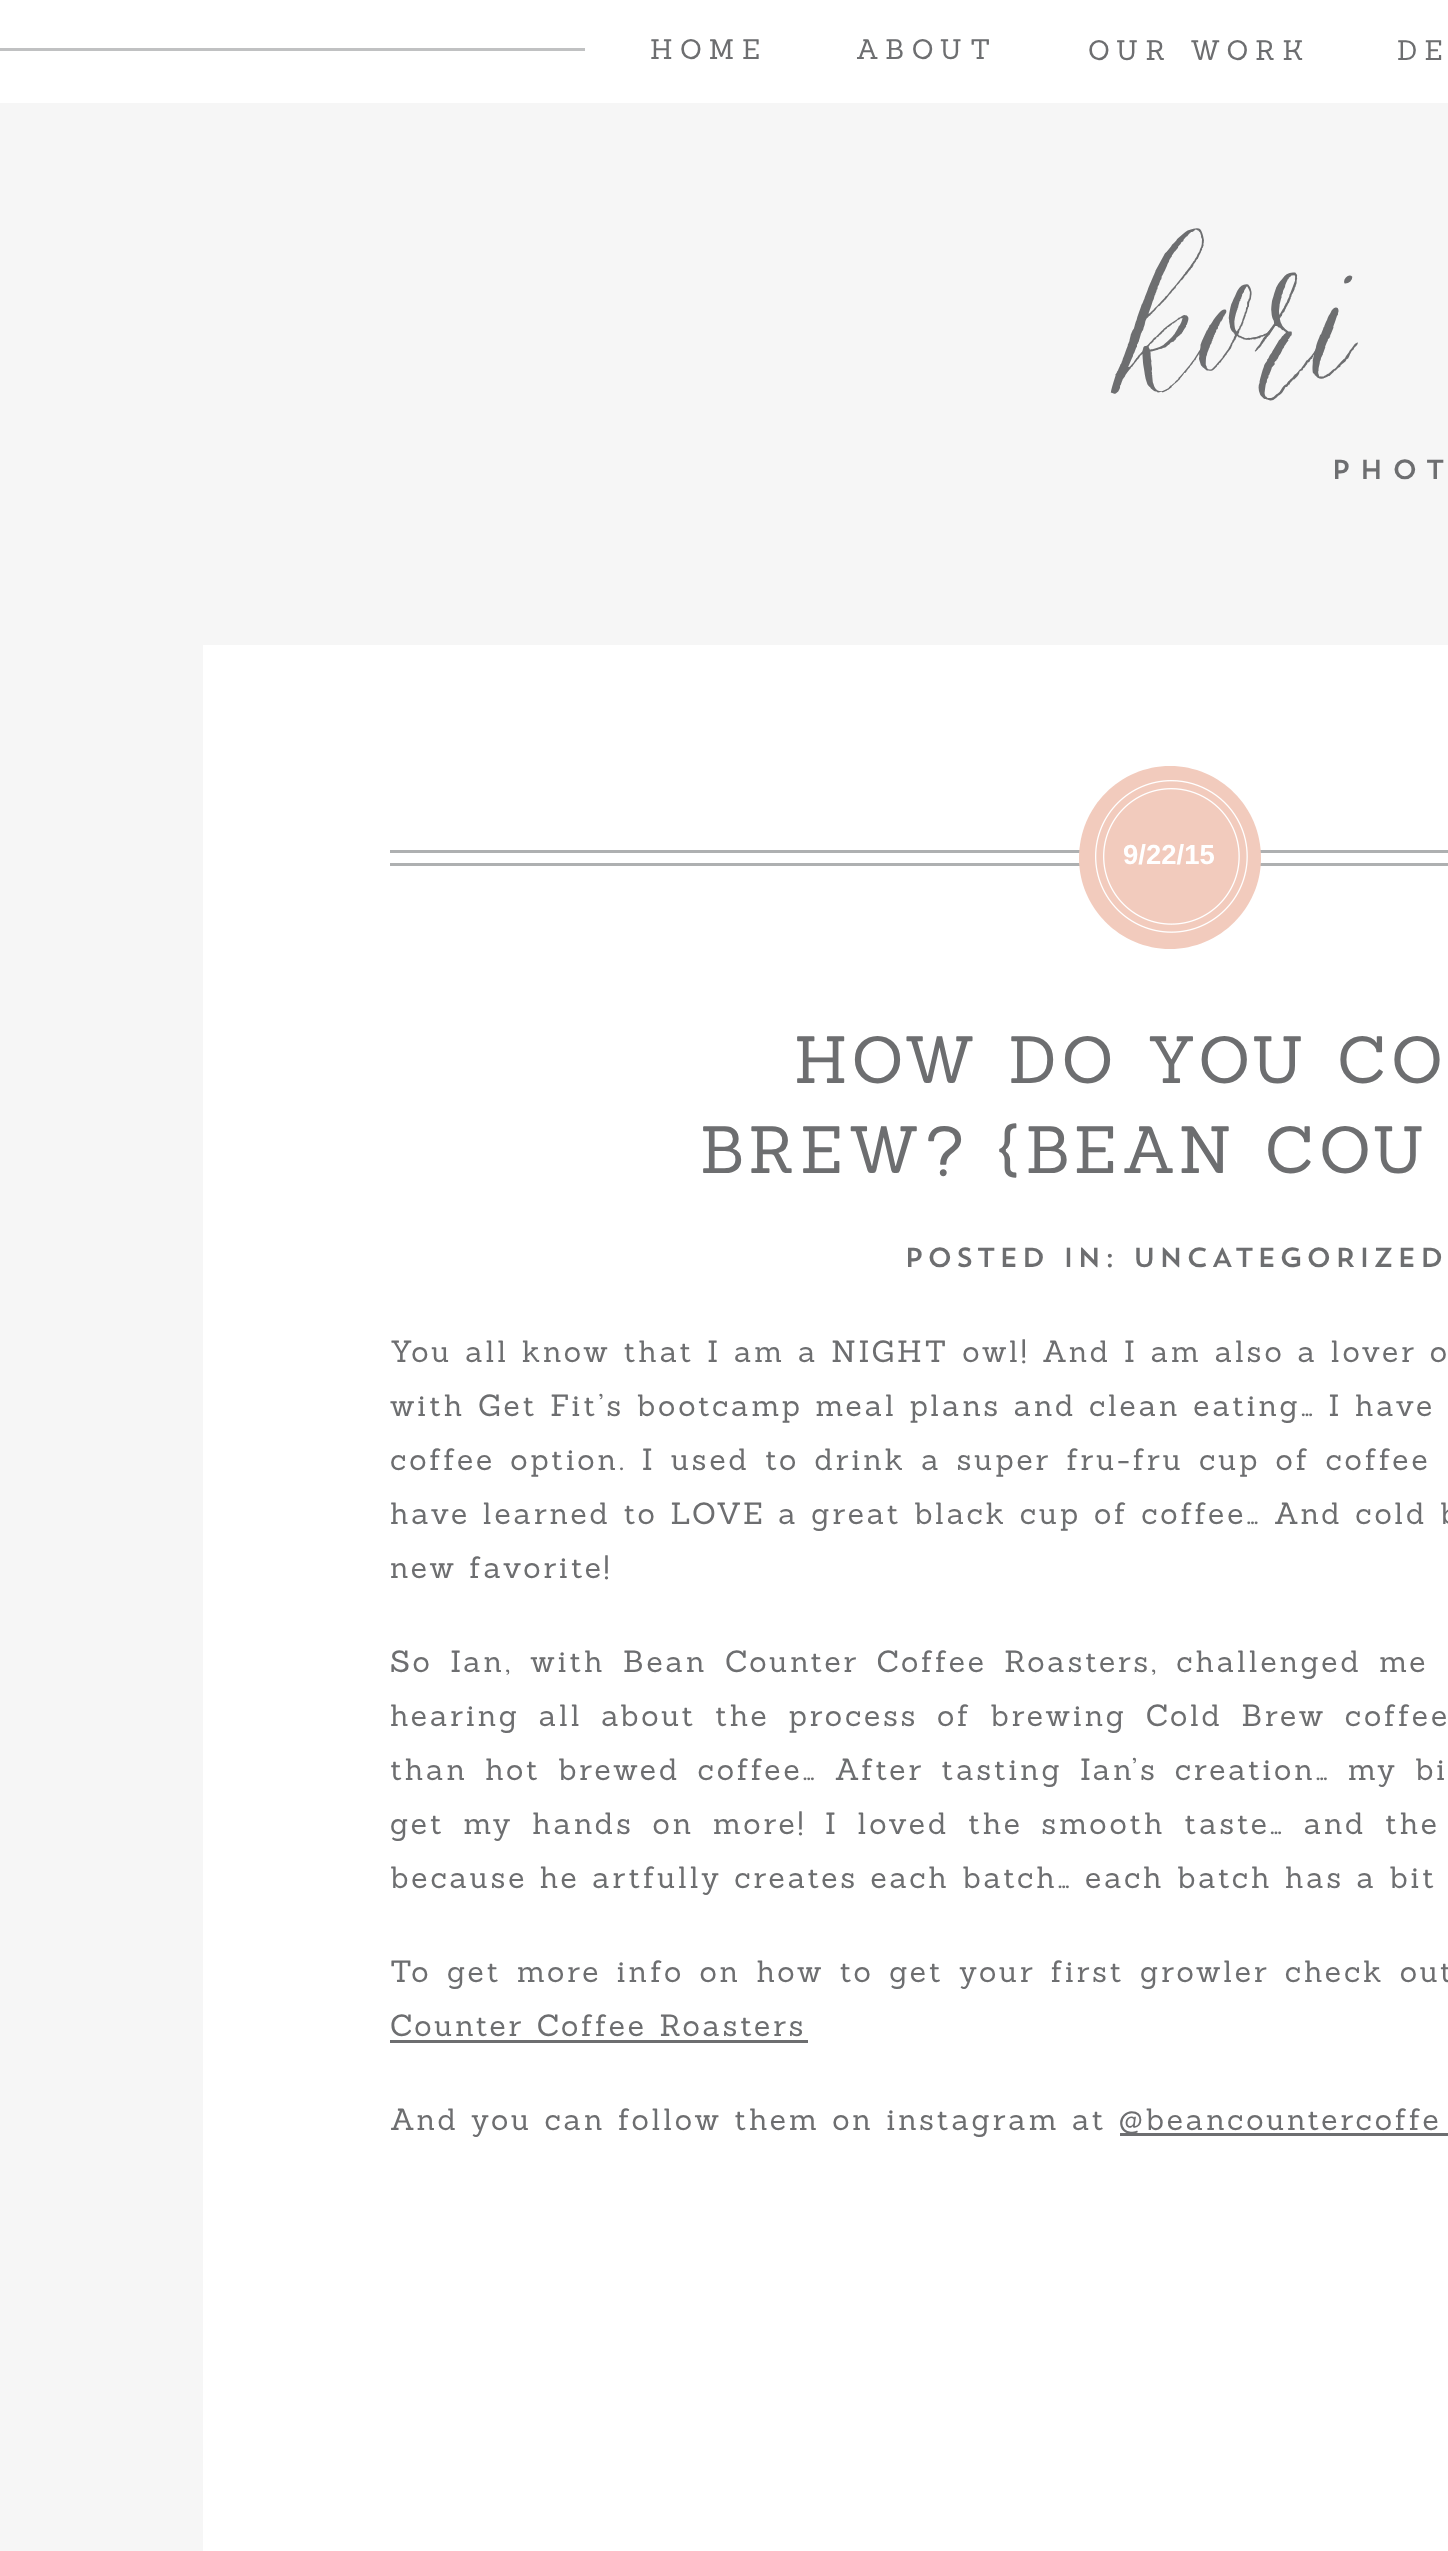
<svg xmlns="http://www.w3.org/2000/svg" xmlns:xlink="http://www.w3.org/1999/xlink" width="1448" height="2551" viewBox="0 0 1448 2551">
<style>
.cls-1{font:27.5px Sanchez;letter-spacing:8.25px;fill:#6d6e70}
.cls-2{font:200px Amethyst;fill:#6d6e70}
.cls-3{font:27.5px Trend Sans;letter-spacing:8.25px;fill:#6d6e70}
.cls-4{font:bold 27.5px Liberation Sans;fill:#ffffff}
.cls-5{font:65px Sanchez;letter-spacing:6.5px;fill:#6d6e70}
.cls-6{font:27.5px Trend Sans;letter-spacing:2.75px;fill:#6d6e70}
.cls-7{font:30px Sanchez;letter-spacing:3px;fill:#6d6e70}
</style>
<rect width="100%" height="100%" fill="#ffffff"/>
<rect fill="#c0c1c2" x="0" y="48" width="585" height="3"/>
<rect fill="#f6f6f6" x="0" y="103" width="1448" height="400"/>
<rect fill="#f6f6f6" x="0" y="503" width="1448" height="687"/>
<rect fill="#ffffff" x="203" y="645" width="1245" height="545"/>
<rect fill="#aeb0b1" x="390" y="850" width="1058" height="3"/>
<rect fill="#aeb0b1" x="390" y="863" width="1058" height="3"/>
<path fill="#f2cbbd" d="M1170 949C1220 949 1261 908 1261 858C1261 807 1220 766 1170 766C1120 766 1079 807 1079 858C1079 908 1120 949 1170 949Z"/>
<image xlink:href="image0.png" x="1095" y="780" width="153" height="153"/>
<rect fill="#f6f6f6" x="0" y="1190" width="203" height="1361"/>
<rect fill="#6d6e70" x="390" y="2040" width="418" height="3"/>
<rect fill="#6d6e70" x="1120" y="2133" width="328" height="3"/>
<text class="cls-1" x="650" y="59">HOME</text>
<text class="cls-1" x="856" y="59">ABOUT</text>
<text class="cls-1" x="1088" y="60">OUR WORK</text>
<text class="cls-1" x="1397" y="60">DE</text>
<text class="cls-2" x="1118" y="388">kori</text>
<text class="cls-3" x="1331" y="479">PHOT</text>
<text class="cls-4" x="1123" y="864">9/22/15</text>
<text class="cls-5" x="794" y="1083">HOW DO YOU CO</text>
<text class="cls-5" x="700" y="1173">BREW? {BEAN COU</text>
<text class="cls-6" x="904" y="1267">POSTED IN: UNCATEGORIZED</text>
<text class="cls-7"><tspan x="390" y="1362" word-spacing="0.5">You all know that I am a NIGHT owl! And I am also a lover o</tspan><tspan x="390" y="1416" word-spacing="0.25">with Get Fit’s bootcamp meal plans and clean eating… I have</tspan><tspan x="390" y="1470" word-spacing="2.75">coffee option. I used to drink a super fru-fru cup of coffee</tspan><tspan x="390" y="1524" word-spacing="0.25">have learned to LOVE a great black cup of coffee… And cold b</tspan><tspan x="390" y="1578">new favorite!</tspan></text>
<text class="cls-7"><tspan x="390" y="1672" word-spacing="5">So Ian, with Bean Counter Coffee Roasters, challenged me</tspan><tspan x="390" y="1726" word-spacing="6.25">hearing all about the process of brewing Cold Brew coffee</tspan><tspan x="390" y="1780" word-spacing="4.75">than hot brewed coffee… After tasting Ian’s creation… my bi</tspan><tspan x="390" y="1834" word-spacing="6.4">get my hands on more! I loved the smooth taste… and the</tspan><tspan x="390" y="1888">because he artfully creates each batch… each batch has a bit</tspan></text>
<text class="cls-7"><tspan x="390" y="1982" word-spacing="2.9">To get more info on how to get your first growler check out</tspan><tspan x="390" y="2036">Counter Coffee Roasters</tspan></text>
<text class="cls-7" x="390" y="2130">And you can follow them on instagram at</text>
<text class="cls-7" x="1119" y="2130">@beancountercoffe</text>
</svg>
